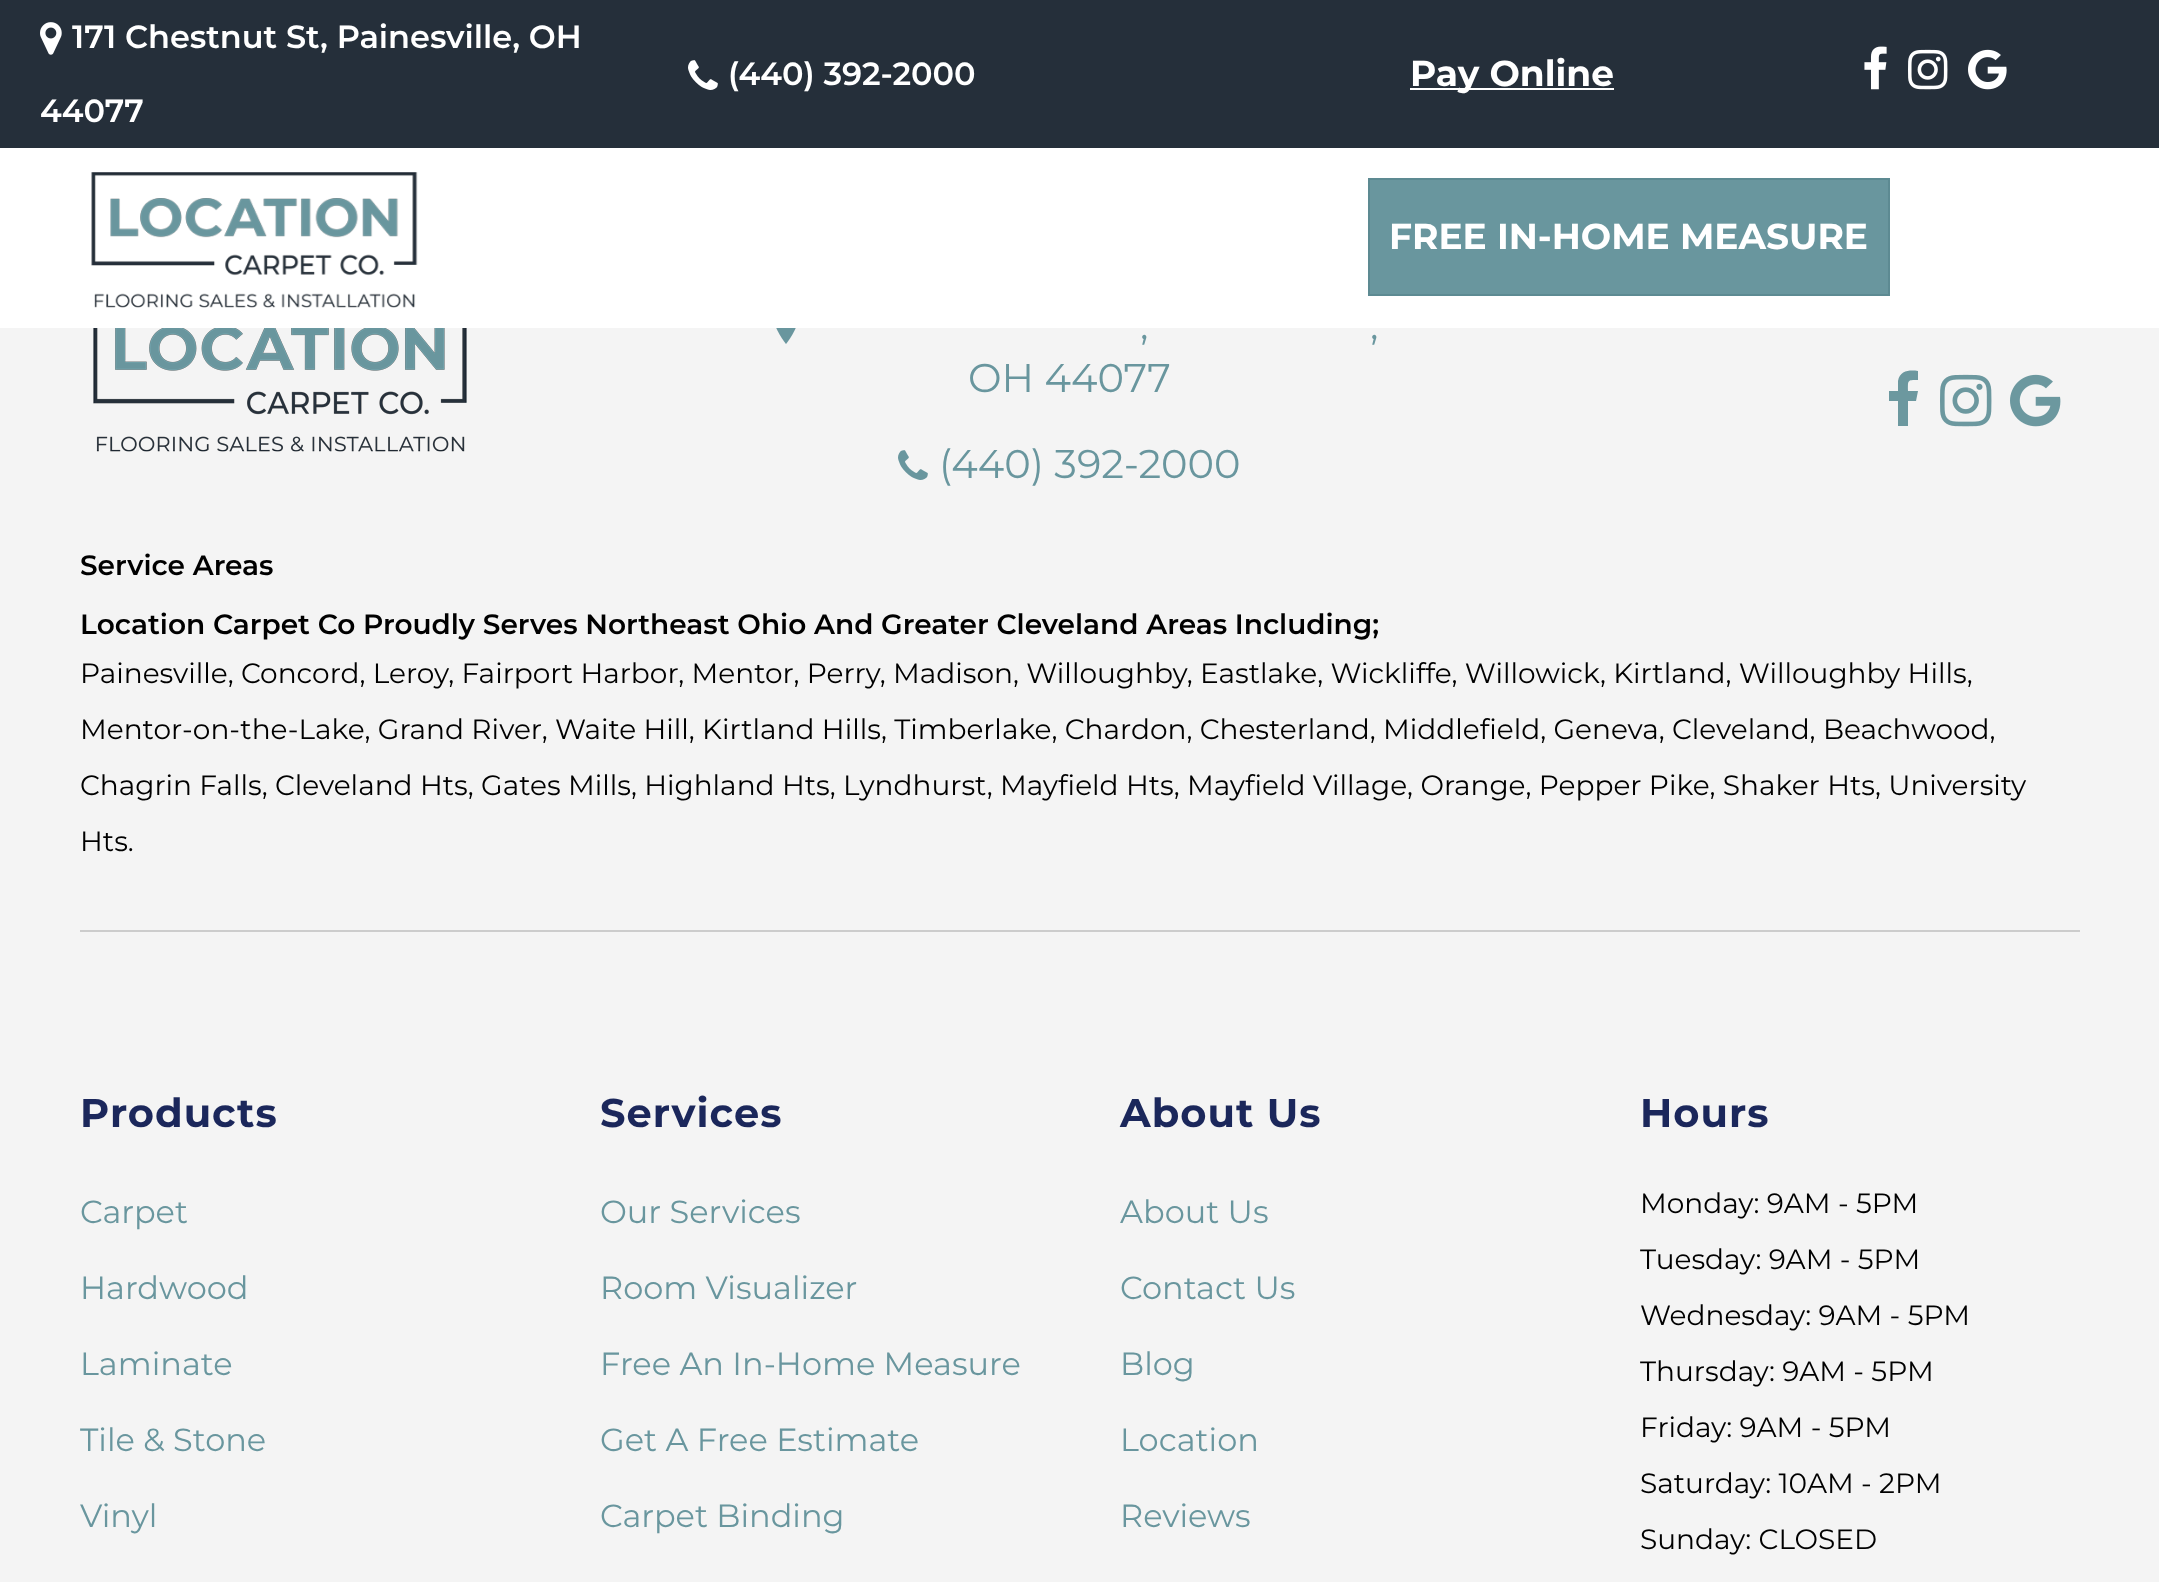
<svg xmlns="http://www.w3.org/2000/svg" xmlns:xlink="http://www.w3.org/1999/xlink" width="2159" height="1582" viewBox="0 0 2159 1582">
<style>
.cls-1{font:600 32px Montserrat;fill:#ffffff}
.cls-2{font:bold 36px Montserrat;fill:#ffffff}
.cls-3{font:40px Montserrat;fill:#69969e}
.cls-4{font:600 28px Montserrat;fill:#000000}
.cls-5{font:28px Montserrat;fill:#000000}
.cls-6{font:bold 40px Montserrat;letter-spacing:1px;fill:#1b275b}
.cls-7{font:32px Montserrat;fill:#69969e}
</style>
<rect width="100%" height="100%" fill="#f4f4f4"/>
<rect fill="#252f3a" x="0" y="0" width="2159" height="148"/>
<image xlink:href="image0.png" x="40" y="22" width="22" height="33"/>
<image xlink:href="image1.png" x="688" y="60" width="30" height="30"/>
<rect fill="#ffffff" x="1410" y="88" width="204" height="2"/>
<image xlink:href="image2.png" x="1864" y="46" width="23" height="44"/>
<image xlink:href="image3.png" x="1908" y="49" width="40" height="41"/>
<image xlink:href="image4.png" x="1968" y="49" width="39" height="41"/>
<rect fill="#ffffff" x="0" y="148" width="2159" height="180"/>
<image xlink:href="image5.png" x="91" y="172" width="327" height="136"/>
<rect fill="#69969e" stroke="#5d8a92" stroke-width="2" x="1369" y="179" width="520" height="116"/>
<image xlink:href="image6.png" x="93" y="328" width="374" height="124"/>
<image xlink:href="image7.png" x="776" y="328" width="20" height="16"/>
<image xlink:href="image8.png" x="898" y="450" width="30" height="30"/>
<path fill="#6c989f" d="M1918 371V380C1907 380 1908 380 1908 391H1918L1916 401H1908V426H1898V401H1889V391H1898V381C1900 370 1910 370 1918 371Z"/>
<image xlink:href="image9.png" x="1940" y="374" width="52" height="53"/>
<image xlink:href="image10.png" x="2010" y="374" width="51" height="53"/>
<rect fill="#cccccc" x="80" y="930" width="2000" height="2"/>
<text class="cls-1" x="72" y="48">171 Chestnut St, Painesville, OH</text>
<text class="cls-1" x="40" y="122">44077</text>
<text class="cls-1" x="728" y="85">(440) 392-2000</text>
<text class="cls-2" x="1410" y="86">Pay Online</text>
<text class="cls-2" x="1389" y="249">FREE IN-HOME MEASURE</text>
<text class="cls-3" x="1140" y="339">,</text>
<text class="cls-3" x="1370" y="339">,</text>
<text class="cls-3" x="968" y="392">OH 44077</text>
<text class="cls-3" x="939" y="478">(440) 392-2000</text>
<text class="cls-4" x="80" y="575">Service Areas</text>
<text class="cls-4" x="80" y="634">Location Carpet Co Proudly Serves Northeast Ohio And Greater Cleveland Areas Including;</text>
<text class="cls-5" x="80" y="683">Painesville, Concord, Leroy, Fairport Harbor, Mentor, Perry, Madison, Willoughby, Eastlake, Wickliffe, Willowick, Kirtland, Willoughby Hills,</text>
<text class="cls-5" x="80" y="739">Mentor-on-the-Lake, Grand River, Waite Hill, Kirtland Hills, Timberlake, Chardon, Chesterland, Middlefield, Geneva, Cleveland, Beachwood,</text>
<text class="cls-5" x="80" y="795">Chagrin Falls, Cleveland Hts, Gates Mills, Highland Hts, Lyndhurst, Mayfield Hts, Mayfield Village, Orange, Pepper Pike, Shaker Hts, University</text>
<text class="cls-5" x="80" y="851">Hts.</text>
<text class="cls-6" x="80" y="1127">Products</text>
<text class="cls-7" x="80" y="1223">Carpet</text>
<text class="cls-7" x="80" y="1299">Hardwood</text>
<text class="cls-7" x="80" y="1375">Laminate</text>
<text class="cls-7" x="80" y="1451">Tile &amp; Stone</text>
<text class="cls-7" x="80" y="1527">Vinyl</text>
<text class="cls-6" x="600" y="1127">Services</text>
<text class="cls-7" x="600" y="1223">Our Services</text>
<text class="cls-7" x="600" y="1299">Room Visualizer</text>
<text class="cls-7" x="600" y="1375">Free An In-Home Measure</text>
<text class="cls-7" x="600" y="1451">Get A Free Estimate</text>
<text class="cls-7" x="600" y="1527">Carpet Binding</text>
<text class="cls-6" x="1120" y="1127">About Us</text>
<text class="cls-7" x="1120" y="1223">About Us</text>
<text class="cls-7" x="1120" y="1299">Contact Us</text>
<text class="cls-7" x="1120" y="1375">Blog</text>
<text class="cls-7" x="1120" y="1451">Location</text>
<text class="cls-7" x="1120" y="1527">Reviews</text>
<text class="cls-6" x="1640" y="1127">Hours</text>
<text class="cls-5" x="1640" y="1213">Monday: 9AM - 5PM</text>
<text class="cls-5" x="1640" y="1269">Tuesday: 9AM - 5PM</text>
<text class="cls-5" x="1640" y="1325">Wednesday: 9AM - 5PM</text>
<text class="cls-5" x="1640" y="1381">Thursday: 9AM - 5PM</text>
<text class="cls-5" x="1640" y="1437">Friday: 9AM - 5PM</text>
<text class="cls-5" x="1640" y="1493">Saturday: 10AM - 2PM</text>
<text class="cls-5" x="1640" y="1549">Sunday: CLOSED</text>
</svg>
